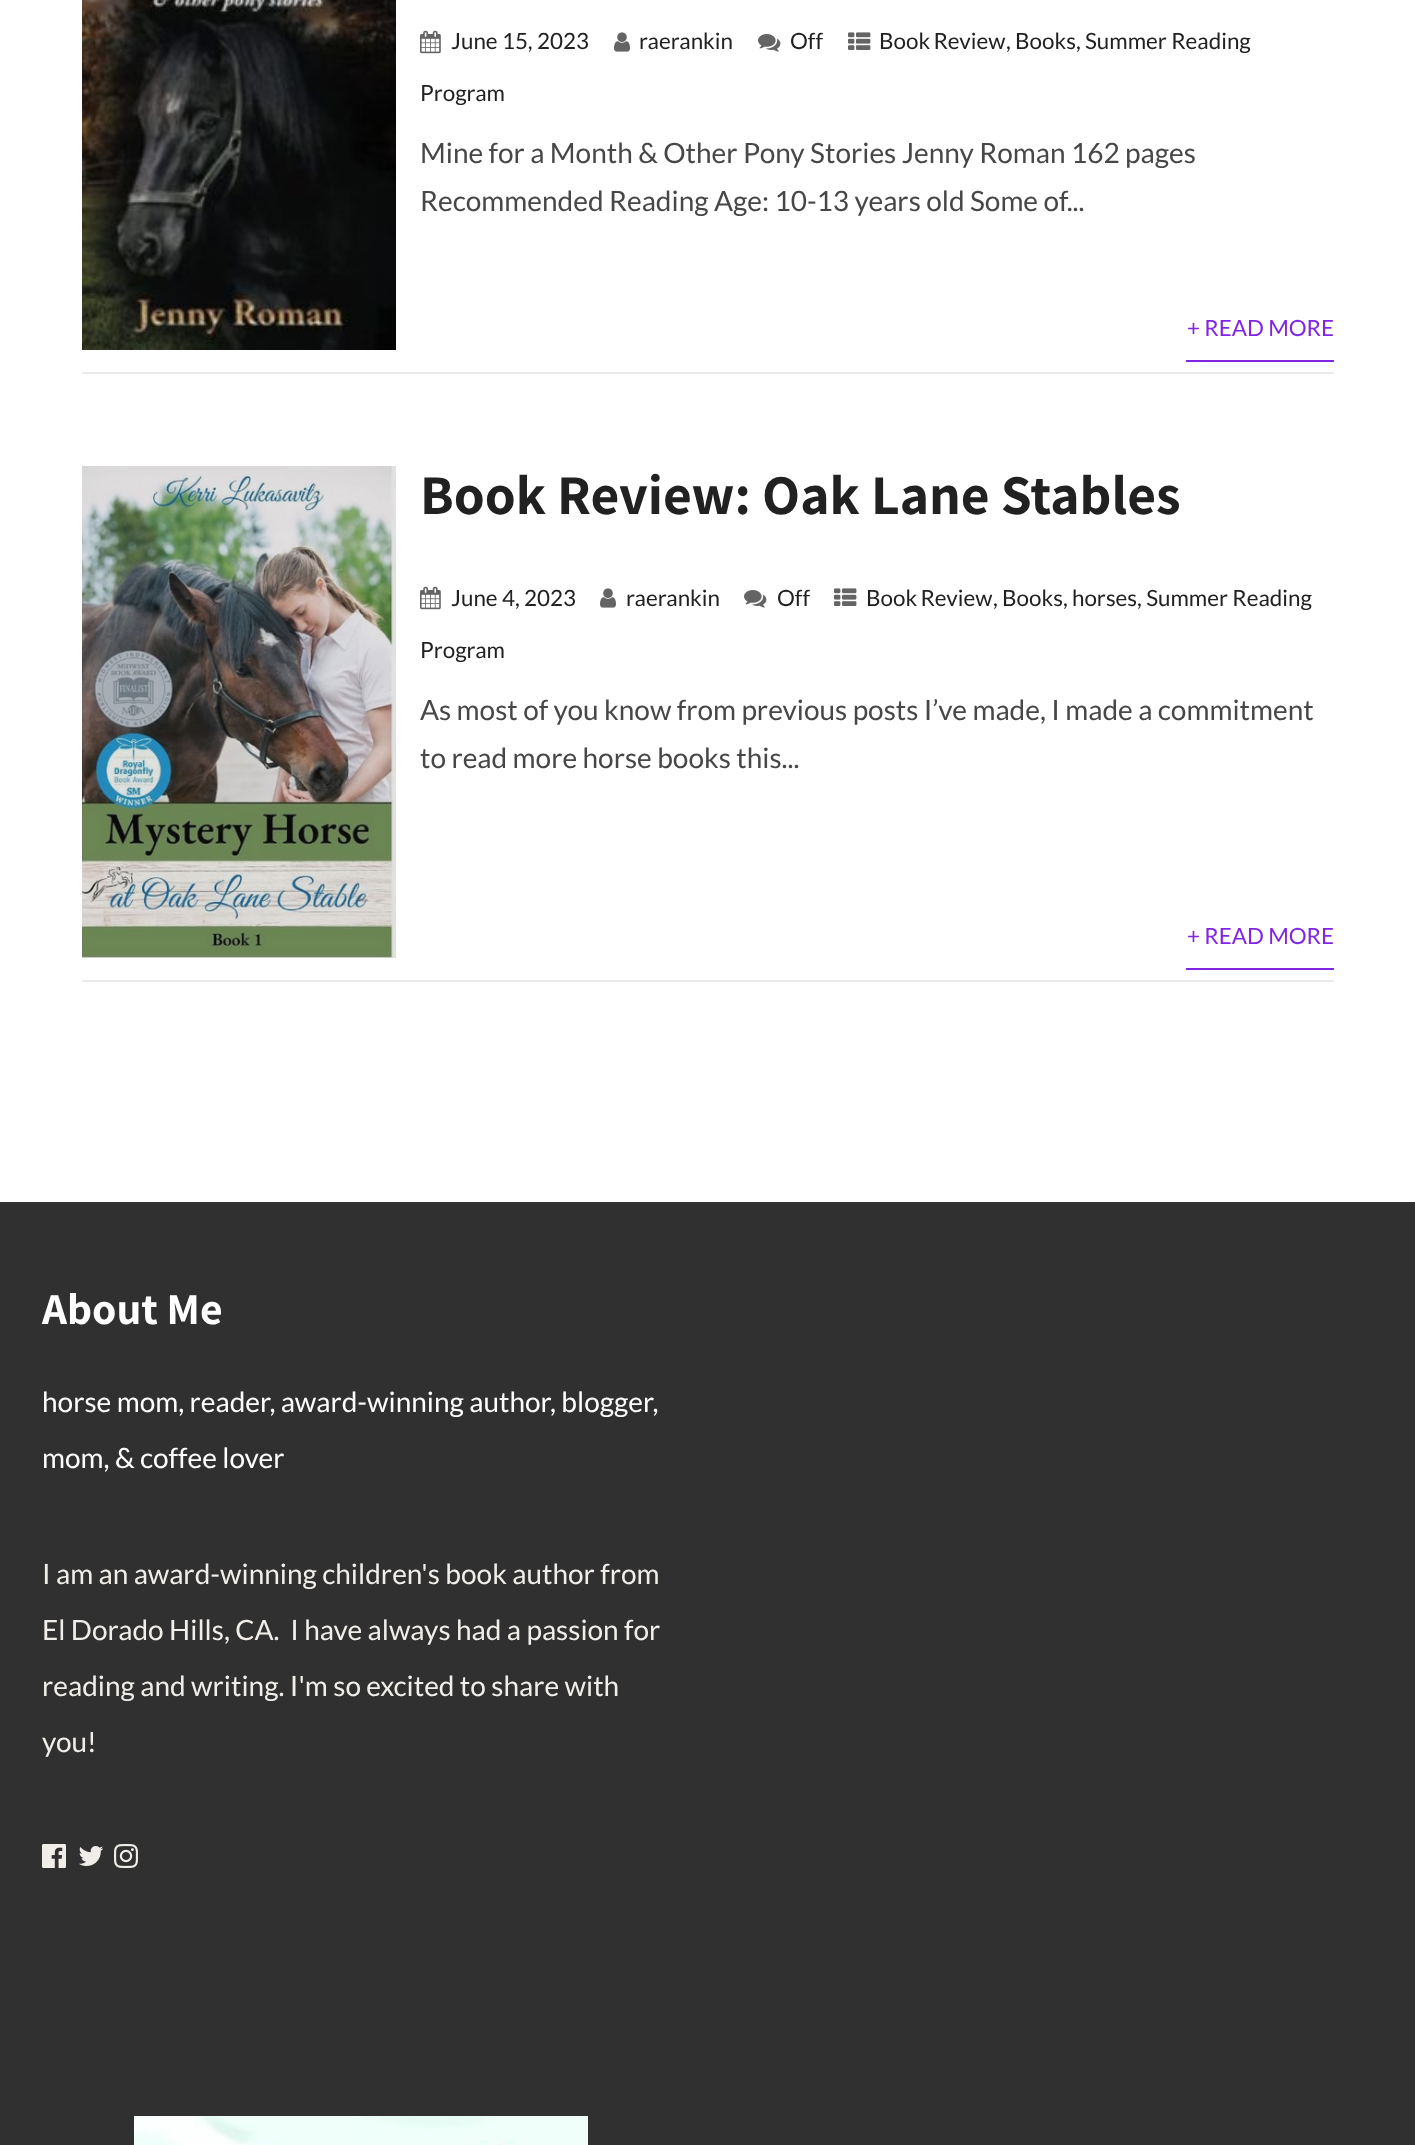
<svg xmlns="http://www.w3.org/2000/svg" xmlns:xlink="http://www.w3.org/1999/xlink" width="1415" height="2145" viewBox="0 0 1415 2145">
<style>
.cls-1{font:22.4px Lato;fill:#212121}
.cls-2{font:28px Lato;fill:#484747}
.cls-3{font:22.4px Lato;fill:#8224e3}
.cls-4{font:bold 56px Assistant;fill:#212121}
.cls-5{font:bold 44px Assistant;fill:#ffffff}
.cls-6{font:28px Lato;fill:#ffffff}
.cls-7{font:28px Lato;fill:#f1eee9}
</style>
<rect width="100%" height="100%" fill="#ffffff"/>
<image xlink:href="image0.png" x="82" y="0" width="314" height="350"/>
<image xlink:href="image1.png" x="420" y="30" width="21" height="24"/>
<image xlink:href="image2.png" x="614" y="32" width="16" height="20"/>
<image xlink:href="image3.png" x="758" y="34" width="23" height="18"/>
<image xlink:href="image4.png" x="848" y="32" width="23" height="18"/>
<rect fill="#ebebeb" x="82" y="372" width="1252" height="2"/>
<rect fill="#8224e3" x="1186" y="360" width="148" height="2"/>
<image xlink:href="image5.png" x="82" y="466" width="314" height="492"/>
<image xlink:href="image1.png" x="420" y="586" width="21" height="24"/>
<image xlink:href="image2.png" x="600" y="588" width="16" height="20"/>
<image xlink:href="image3.png" x="744" y="590" width="23" height="18"/>
<image xlink:href="image4.png" x="834" y="588" width="23" height="18"/>
<rect fill="#ebebeb" x="82" y="980" width="1252" height="2"/>
<rect fill="#8224e3" x="1186" y="968" width="148" height="2"/>
<rect fill="#303030" x="0" y="1202" width="1415" height="943"/>
<image xlink:href="image6.png" x="42" y="1844" width="24" height="24"/>
<image xlink:href="image7.png" x="78" y="1846" width="26" height="20"/>
<image xlink:href="image8.png" x="114" y="1844" width="24" height="24"/>
<image xlink:href="image9.png" x="134" y="2116" width="454" height="29"/>
<text class="cls-1" x="451" y="49">June 15, 2023</text>
<text class="cls-1" x="639" y="49">raerankin</text>
<text class="cls-1" x="790" y="49">Off</text>
<text class="cls-1" x="879" y="49" word-spacing="-1">Book Review</text>
<text class="cls-1" x="1006" y="49">, Books, Summer Reading</text>
<text class="cls-1" x="420" y="101">Program</text>
<text class="cls-2"><tspan x="420" y="163">Mine for a Month &amp; Other Pony Stories Jenny Roman 162 pages</tspan><tspan x="420" y="211">Recommended Reading Age: 10-13 years old Some of...</tspan></text>
<text class="cls-3" x="1187" y="336">+ READ MORE</text>
<text class="cls-4" x="420" y="514">Book Review: Oak Lane Stables</text>
<text class="cls-1" x="451" y="606">June 4, 2023</text>
<text class="cls-1" x="626" y="606">raerankin</text>
<text class="cls-1" x="777" y="606">Off</text>
<text class="cls-1" x="866" y="606" word-spacing="-1">Book Review</text>
<text class="cls-1" x="993" y="606">, Books, horses, Summer Reading</text>
<text class="cls-1" x="420" y="658">Program</text>
<text class="cls-2"><tspan x="420" y="720">As most of you know from previous posts I’ve made, I made a commitment</tspan><tspan x="420" y="768">to read more horse books this...</tspan></text>
<text class="cls-3" x="1187" y="944">+ READ MORE</text>
<text class="cls-5" x="42" y="1324">About Me</text>
<text class="cls-6" x="42" y="1412">horse mom, reader, award-winning author, blogger,</text>
<text class="cls-6" x="42" y="1468">mom, &amp; coffee lover</text>
<text class="cls-7" x="42" y="1584">I am an award-winning children's book author from</text>
<text class="cls-7" xml:space="preserve" x="42" y="1640">El Dorado Hills, CA.  I have always had a passion for</text>
<text class="cls-7" x="42" y="1696">reading and writing. I'm so excited to share with</text>
<text class="cls-7" x="42" y="1752">you!</text>
</svg>
